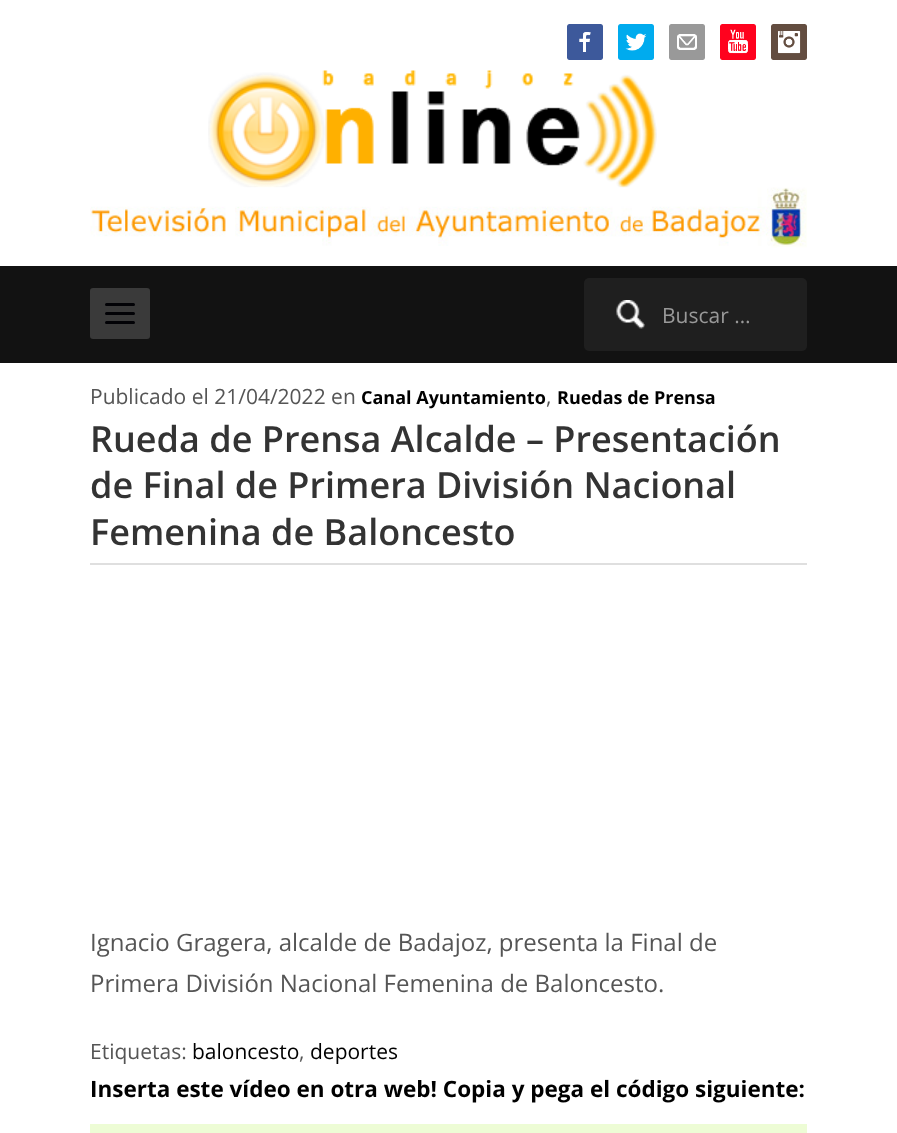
<svg xmlns="http://www.w3.org/2000/svg" xmlns:xlink="http://www.w3.org/1999/xlink" width="897" height="1133" viewBox="0 0 897 1133">
<style>
.cls-1{font:21px Open Sans;fill:#999999}
.cls-2{font:21px Open Sans;fill:#555555}
.cls-3{font:bold 18px Open Sans;fill:#000000}
.cls-4{font:600 36px Open Sans;fill:#333333}
.cls-5{font:24px Open Sans;fill:#555555}
.cls-6{font:21px Open Sans;fill:#000000}
.cls-7{font:bold 22.5px Open Sans;fill:#000000}
</style>
<rect width="100%" height="100%" fill="#ffffff"/>
<image xlink:href="image0.png" x="567" y="24" width="36" height="36"/>
<image xlink:href="image1.png" x="618" y="24" width="36" height="36"/>
<image xlink:href="image2.png" x="669" y="24" width="36" height="36"/>
<image xlink:href="image3.png" x="720" y="24" width="36" height="36"/>
<image xlink:href="image4.png" x="771" y="24" width="36" height="36"/>
<image xlink:href="image5.png" x="208" y="70" width="449" height="118"/>
<image xlink:href="image6.png" x="90" y="187" width="717" height="61"/>
<rect fill="#121212" x="0" y="266" width="897" height="97"/>
<rect fill="#3a3a3a" x="90" y="288" width="60" height="51" rx="3"/>
<rect fill="#020206" x="105" y="303" width="30" height="3" rx="1.5"/>
<rect fill="#020206" x="105" y="312" width="30" height="3" rx="1.5"/>
<rect fill="#020206" x="105" y="321" width="30" height="3" rx="1.5"/>
<rect fill="#1f1f1f" x="584" y="278" width="223" height="73" rx="5"/>
<image xlink:href="image7.png" x="616" y="300" width="29" height="29"/>
<rect fill="#dfdfdf" x="90" y="563" width="717" height="2"/>
<rect fill="#edfcd5" x="90" y="1124" width="717" height="9"/>
<text class="cls-1" x="662" y="323">Buscar …</text>
<text class="cls-2" x="90" y="404">Publicado el 21/04/2022 en</text>
<text class="cls-3" x="361" y="404">Canal Ayuntamiento</text>
<text class="cls-2" x="546" y="404">,</text>
<text class="cls-3" x="557" y="404">Ruedas de Prensa</text>
<text class="cls-4"><tspan x="90" y="452">Rueda de Prensa Alcalde – Presentación</tspan><tspan x="90" y="498">de Final de Primera División Nacional</tspan><tspan x="90" y="545">Femenina de Baloncesto</tspan></text>
<text class="cls-5"><tspan x="90" y="951">Ignacio Gragera, alcalde de Badajoz, presenta la Final de</tspan><tspan x="90" y="992">Primera División Nacional Femenina de Baloncesto.</tspan></text>
<text class="cls-2" x="90" y="1059">Etiquetas:</text>
<text class="cls-6" x="192" y="1059">baloncesto</text>
<text class="cls-2" x="299" y="1059">,</text>
<text class="cls-6" x="310" y="1059">deportes</text>
<text class="cls-7" x="90" y="1097">Inserta este vídeo en otra web! Copia y pega el código siguiente:</text>
</svg>
